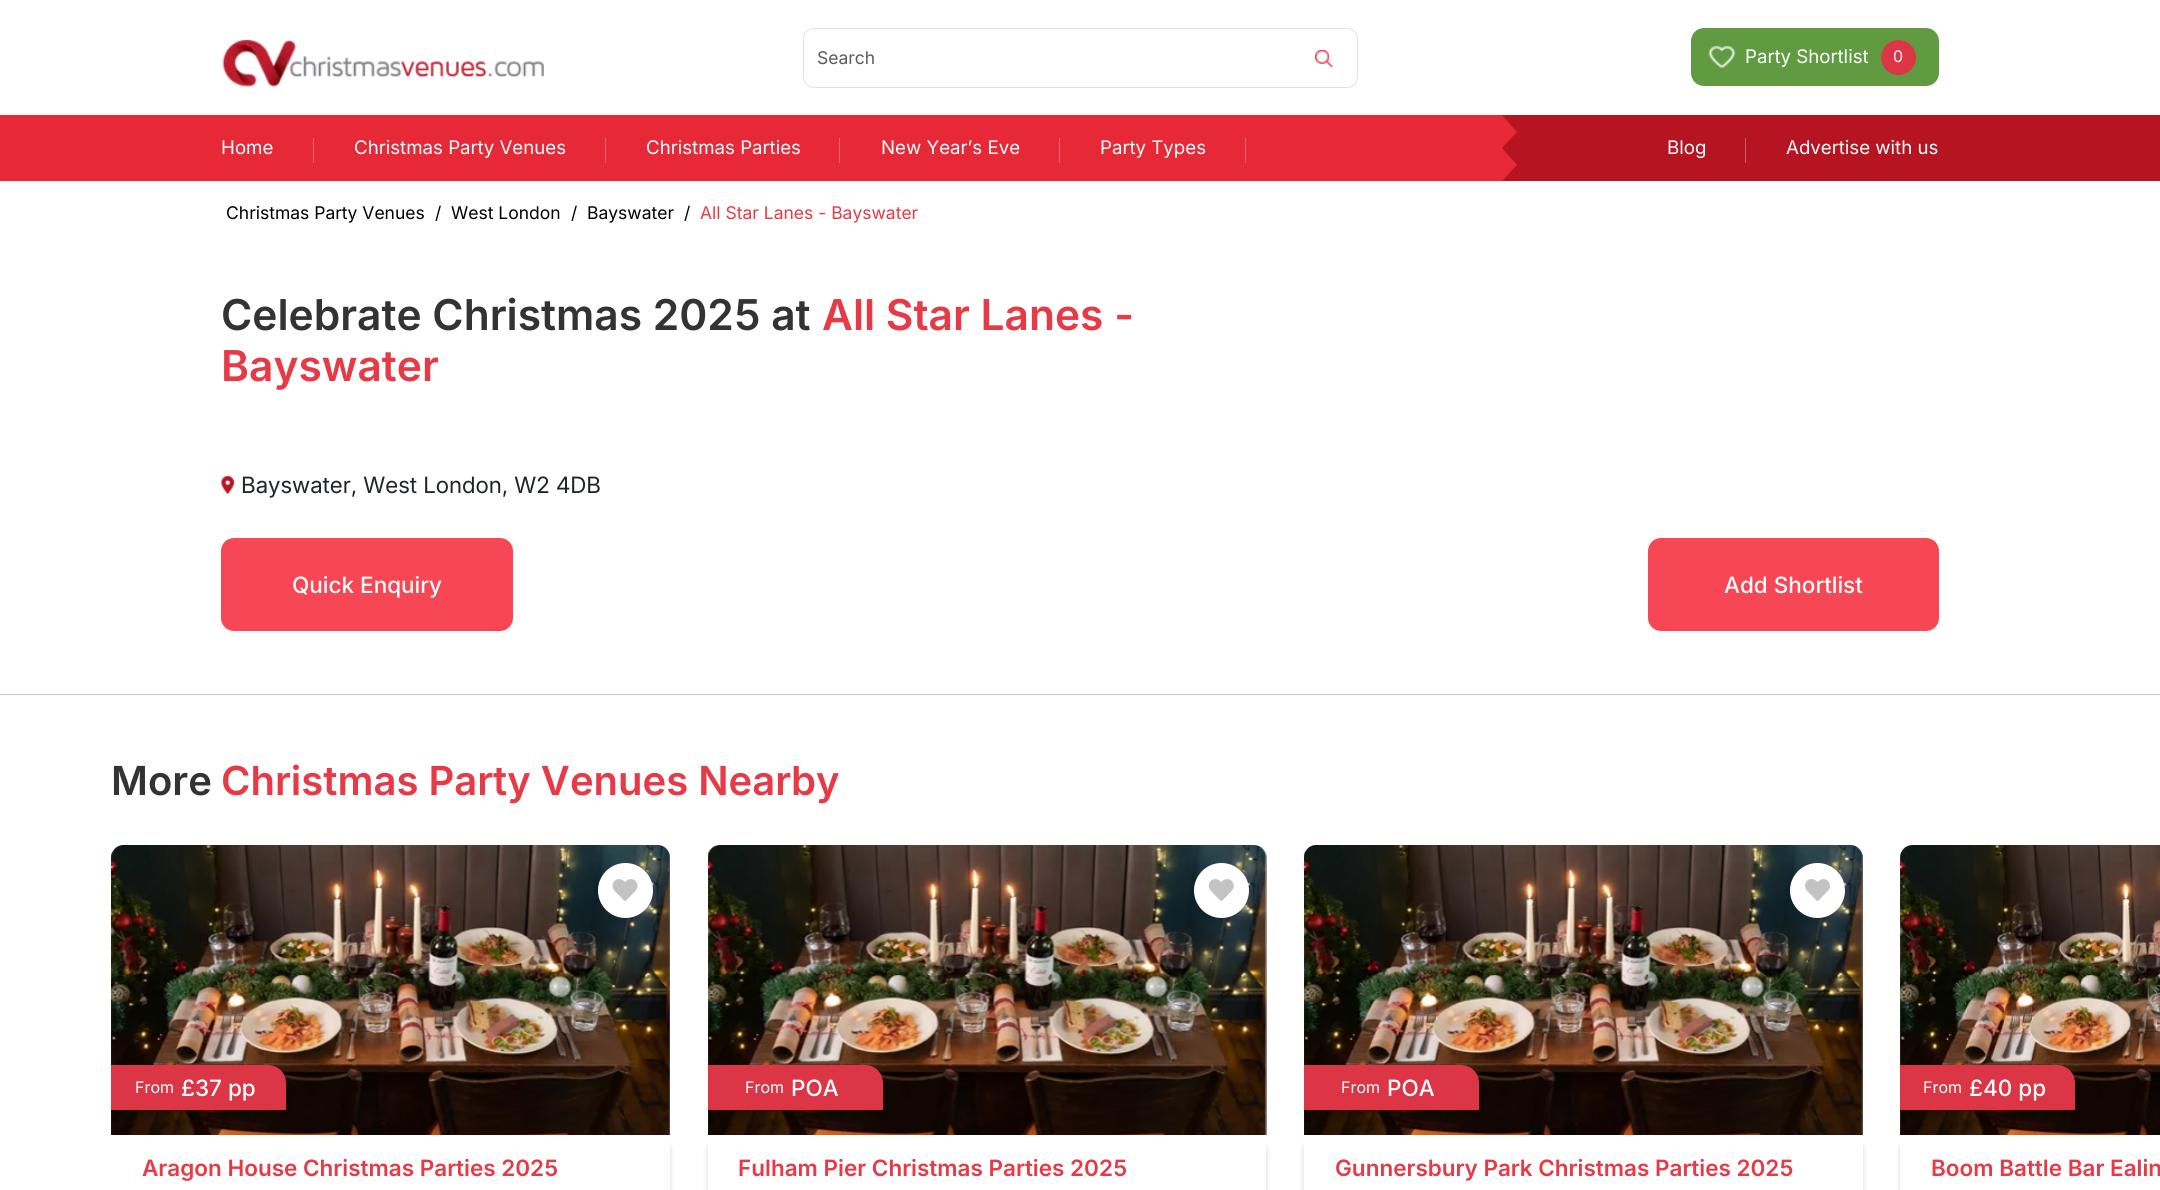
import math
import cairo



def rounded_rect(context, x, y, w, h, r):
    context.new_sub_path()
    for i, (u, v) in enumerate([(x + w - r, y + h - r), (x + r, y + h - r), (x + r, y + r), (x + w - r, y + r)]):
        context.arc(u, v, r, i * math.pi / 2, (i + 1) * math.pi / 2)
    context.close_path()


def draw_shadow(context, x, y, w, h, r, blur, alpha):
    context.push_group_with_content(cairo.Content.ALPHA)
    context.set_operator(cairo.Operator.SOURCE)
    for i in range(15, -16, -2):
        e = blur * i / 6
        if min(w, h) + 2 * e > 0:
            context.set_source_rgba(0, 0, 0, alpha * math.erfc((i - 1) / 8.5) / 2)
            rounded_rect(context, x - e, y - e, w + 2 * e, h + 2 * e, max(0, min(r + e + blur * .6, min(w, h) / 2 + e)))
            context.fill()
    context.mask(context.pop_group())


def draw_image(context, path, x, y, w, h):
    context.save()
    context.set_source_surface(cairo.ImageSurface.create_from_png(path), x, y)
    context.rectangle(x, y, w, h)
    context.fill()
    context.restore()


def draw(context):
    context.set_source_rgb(1, 1, 1)
    context.paint()
    draw_image(context, "images/1.png", 222, 39, 322, 49)
    rounded_rect(context, 803.5, 28.5, 554, 59, 10.5)
    context.set_source_rgb(222 / 255, 226 / 255, 230 / 255)
    context.set_line_width(1)
    context.stroke()
    draw_image(context, "images/2.png", 1315, 50, 18, 18)
    context.set_source_rgb(96 / 255, 155 / 255, 65 / 255)
    rounded_rect(context, 1691, 28, 248, 58, 13)
    context.fill()
    draw_image(context, "images/3.png", 1708, 45, 28, 23)
    context.set_source_rgb(220 / 255, 53 / 255, 69 / 255)
    context.arc(1898.5, 57.5, 17.5, 0, 2 * math.pi)
    context.fill()
    context.set_source_rgb(230 / 255, 40 / 255, 55 / 255)
    context.rectangle(0, 115, 1517, 66)
    context.fill()
    context.set_source_rgb(181 / 255, 20 / 255, 32 / 255)
    context.new_path()
    context.move_to(1555, 115)
    context.line_to(1502, 115)
    context.line_to(1517, 132)
    context.line_to(1502, 148)
    context.line_to(1517, 165)
    context.line_to(1502, 181)
    context.line_to(1555, 181)
    context.close_path()
    context.fill()
    context.rectangle(1555, 115, 605, 66)
    context.fill()
    context.set_source_rgb(238 / 255, 105 / 255, 115 / 255)
    context.rectangle(313, 138, 1, 25)
    context.fill()
    context.rectangle(605, 138, 1, 25)
    context.fill()
    context.rectangle(839, 138, 1, 25)
    context.fill()
    context.rectangle(1059, 138, 1, 25)
    context.fill()
    context.rectangle(1245, 138, 1, 25)
    context.fill()
    context.set_source_rgb(203 / 255, 91 / 255, 99 / 255)
    context.rectangle(1745, 138, 1, 25)
    context.fill()
    draw_image(context, "images/4.png", 221, 476, 14, 18)
    context.set_source_rgb(247 / 255, 71 / 255, 84 / 255)
    rounded_rect(context, 221, 538, 292, 93, 13)
    context.fill()
    rounded_rect(context, 1648, 538, 291, 93, 13)
    context.fill()
    context.set_source_rgb(200 / 255, 201 / 255, 202 / 255)
    context.rectangle(0, 694, 2160, 1)
    context.fill()
    context.save()
    context.rectangle(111, 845, 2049, 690)
    context.clip()
    context.set_source_rgb(0, 0, 0)
    draw_shadow(context, 111, 1138, 559, 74, 13, 3, 0.16)
    context.restore()
    context.set_source_rgb(128 / 255, 128 / 255, 128 / 255)
    context.new_path()
    context.move_to(124, 845)
    context.line_to(657, 845)
    context.curve_to(664, 845, 670, 851, 670, 858)
    context.line_to(670, 1135)
    context.line_to(111, 1135)
    context.line_to(111, 858)
    context.curve_to(111, 851, 117, 845, 124, 845)
    context.close_path()
    context.fill()
    draw_image(context, "images/5.png", 111, 845, 559, 290)
    context.set_source_rgb(1, 1, 1)
    context.arc(625.5, 890.5, 27.5, 0, 2 * math.pi)
    context.fill()
    draw_image(context, "images/6.png", 612, 879, 26, 22)
    context.set_source_rgb(220 / 255, 53 / 255, 69 / 255)
    context.new_path()
    context.move_to(111, 1065)
    context.line_to(268, 1065)
    context.curve_to(278, 1065, 286, 1073, 286, 1083)
    context.line_to(286, 1110)
    context.line_to(111, 1110)
    context.close_path()
    context.fill()
    context.set_source_rgb(1, 1, 1)
    context.rectangle(111, 1135, 559, 55)
    context.fill()
    context.save()
    context.set_fill_rule(cairo.FillRule.EVEN_ODD)
    context.new_path()
    context.move_to(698, 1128)
    context.line_to(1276, 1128)
    context.line_to(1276, 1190)
    context.line_to(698, 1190)
    context.close_path()
    context.move_to(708, 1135)
    context.line_to(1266, 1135)
    context.line_to(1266, 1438)
    context.curve_to(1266, 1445, 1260, 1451, 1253, 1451)
    context.line_to(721, 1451)
    context.curve_to(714, 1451, 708, 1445, 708, 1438)
    context.close_path()
    context.clip()
    context.set_source_rgb(0, 0, 0)
    draw_shadow(context, 708, 1138, 558, 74, 13, 3, 0.16)
    context.restore()
    draw_image(context, "images/7.png", 708, 845, 559, 290)
    context.arc(1221.5, 890.5, 27.5, 0, 2 * math.pi)
    context.fill()
    draw_image(context, "images/8.png", 1208, 879, 26, 22)
    context.set_source_rgb(220 / 255, 53 / 255, 69 / 255)
    context.new_path()
    context.move_to(708, 1065)
    context.line_to(865, 1065)
    context.curve_to(875, 1065, 883, 1073, 883, 1083)
    context.line_to(883, 1110)
    context.line_to(708, 1110)
    context.close_path()
    context.fill()
    context.set_source_rgb(0, 0, 0)
    draw_shadow(context, 1304, 1138, 559, 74, 13, 3, 0.16)
    context.set_source_rgb(128 / 255, 128 / 255, 128 / 255)
    context.new_path()
    context.move_to(1317, 845)
    context.line_to(1850, 845)
    context.curve_to(1857, 845, 1863, 851, 1863, 858)
    context.line_to(1863, 1135)
    context.line_to(1304, 1135)
    context.line_to(1304, 858)
    context.curve_to(1304, 851, 1310, 845, 1317, 845)
    context.close_path()
    context.fill()
    draw_image(context, "images/9.png", 1304, 845, 559, 290)
    context.set_source_rgb(1, 1, 1)
    context.arc(1817.5, 890.5, 27.5, 0, 2 * math.pi)
    context.fill()
    draw_image(context, "images/10.png", 1805, 879, 25, 22)
    context.set_source_rgb(220 / 255, 53 / 255, 69 / 255)
    context.new_path()
    context.move_to(1304, 1065)
    context.line_to(1461, 1065)
    context.curve_to(1471, 1065, 1479, 1073, 1479, 1083)
    context.line_to(1479, 1110)
    context.line_to(1304, 1110)
    context.close_path()
    context.fill()
    context.set_source_rgb(1, 1, 1)
    context.rectangle(1304, 1135, 559, 55)
    context.fill()
    context.save()
    context.rectangle(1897, 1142, 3, 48)
    context.clip()
    context.set_source_rgb(0, 0, 0)
    draw_shadow(context, 1900, 1138, 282, 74, 13, 3, 0.16)
    context.restore()
    draw_image(context, "images/11.png", 1900, 845, 260, 290)
    context.set_source_rgb(220 / 255, 53 / 255, 69 / 255)
    context.new_path()
    context.move_to(1900, 1065)
    context.line_to(2057, 1065)
    context.curve_to(2067, 1065, 2075, 1073, 2075, 1083)
    context.line_to(2075, 1110)
    context.line_to(1900, 1110)
    context.close_path()
    context.fill()
    context.select_font_face("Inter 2")
    context.set_font_size(17.5)
    context.set_source_rgb(89 / 255, 92 / 255, 95 / 255)
    context.move_to(817, 64)
    context.show_text("Search")
    context.select_font_face("Inter")
    context.set_font_size(18.75)
    context.set_source_rgb(1, 1, 1)
    context.move_to(1745, 63)
    context.show_text("Party Shortlist")
    context.select_font_face("Inter 2")
    context.set_font_size(16)
    context.move_to(1893, 62)
    context.show_text("0")
    context.select_font_face("Inter")
    context.set_font_size(18.75)
    context.move_to(221, 154)
    context.show_text("Home")
    context.move_to(354, 154)
    context.show_text("Christmas Party Venues")
    context.move_to(646, 154)
    context.show_text("Christmas Parties")
    context.move_to(881, 154)
    context.show_text("New Year’s Eve")
    context.move_to(1100, 154)
    context.show_text("Party Types")
    context.move_to(1667, 154)
    context.show_text("Blog")
    context.move_to(1786, 154)
    context.show_text("Advertise with us")
    context.select_font_face("Inter 2")
    context.set_font_size(17.5)
    context.set_source_rgb(0, 0, 0)
    context.move_to(226, 219)
    context.show_text("Christmas Party Venues")
    context.move_to(435, 219)
    context.show_text("/")
    context.move_to(451, 219)
    context.show_text("West London")
    context.move_to(571, 219)
    context.show_text("/")
    context.move_to(587, 219)
    context.show_text("Bayswater")
    context.move_to(684, 219)
    context.show_text("/")
    context.set_source_rgb(230 / 255, 58 / 255, 71 / 255)
    context.move_to(700, 219)
    context.show_text("All Star Lanes - Bayswater")
    context.select_font_face("Inter SemiBold")
    context.set_font_size(42.5)
    context.set_source_rgb(51 / 255, 51 / 255, 51 / 255)
    context.move_to(221, 330)
    context.show_text("Celebrate Christmas 2025 at")
    context.set_source_rgb(230 / 255, 58 / 255, 71 / 255)
    context.move_to(822, 330)
    context.show_text("All Star Lanes -")
    context.move_to(221, 381)
    context.show_text("Bayswater")
    context.select_font_face("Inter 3")
    context.set_font_size(22.5)
    context.set_source_rgb(33 / 255, 37 / 255, 41 / 255)
    context.move_to(241, 493)
    context.show_text("Bayswater, West London, W2 4DB")
    context.select_font_face("Inter Medium")
    context.set_source_rgb(1, 1, 1)
    context.move_to(292, 593)
    context.show_text("Quick Enquiry")
    context.move_to(1724, 593)
    context.show_text("Add Shortlist")
    context.select_font_face("Inter SemiBold")
    context.set_font_size(40)
    context.set_source_rgb(51 / 255, 51 / 255, 51 / 255)
    context.move_to(111, 795)
    context.show_text("More")
    context.set_source_rgb(230 / 255, 58 / 255, 71 / 255)
    context.move_to(221, 795)
    context.show_text("Christmas Party Venues Nearby")
    context.select_font_face("Inter 2")
    context.set_font_size(16)
    context.set_source_rgb(1, 1, 1)
    context.move_to(135, 1093)
    context.show_text("From")
    context.select_font_face("Inter Medium")
    context.set_font_size(22.5)
    context.move_to(181, 1096)
    context.show_text("£37 pp")
    context.select_font_face("Inter SemiBold")
    context.set_source_rgb(230 / 255, 58 / 255, 71 / 255)
    context.move_to(142, 1176)
    context.show_text("Aragon House Christmas Parties 2025")
    context.select_font_face("Inter 2")
    context.set_font_size(16)
    context.set_source_rgb(1, 1, 1)
    context.move_to(745, 1093)
    context.show_text("From")
    context.select_font_face("Inter Medium")
    context.set_font_size(22.5)
    context.move_to(791, 1096)
    context.show_text("POA")
    context.select_font_face("Inter SemiBold")
    context.set_source_rgb(230 / 255, 58 / 255, 71 / 255)
    context.move_to(738, 1176)
    context.show_text("Fulham Pier Christmas Parties 2025")
    context.select_font_face("Inter 2")
    context.set_font_size(16)
    context.set_source_rgb(1, 1, 1)
    context.move_to(1341, 1093)
    context.show_text("From")
    context.select_font_face("Inter Medium")
    context.set_font_size(22.5)
    context.move_to(1387, 1096)
    context.show_text("POA")
    context.select_font_face("Inter SemiBold")
    context.set_source_rgb(230 / 255, 58 / 255, 71 / 255)
    context.move_to(1335, 1176)
    context.show_text("Gunnersbury Park Christmas Parties 2025")
    context.select_font_face("Inter 2")
    context.set_font_size(16)
    context.set_source_rgb(1, 1, 1)
    context.move_to(1923, 1093)
    context.show_text("From")
    context.select_font_face("Inter Medium")
    context.set_font_size(22.5)
    context.move_to(1969, 1096)
    context.show_text("£40 pp")
    context.select_font_face("Inter SemiBold")
    context.set_source_rgb(230 / 255, 58 / 255, 71 / 255)
    context.move_to(1931, 1176)
    context.show_text("Boom Battle Bar Ealin")


surface = cairo.ImageSurface(cairo.Format.RGB24, 2160, 1190)
context = cairo.Context(surface)
options = cairo.FontOptions()
options.set_hint_metrics(cairo.HintMetrics.OFF)
options.set_hint_style(cairo.HintStyle.NONE)
context.set_font_options(options)
context.set_miter_limit(4)
draw(context)
surface.write_to_png("out.png")
